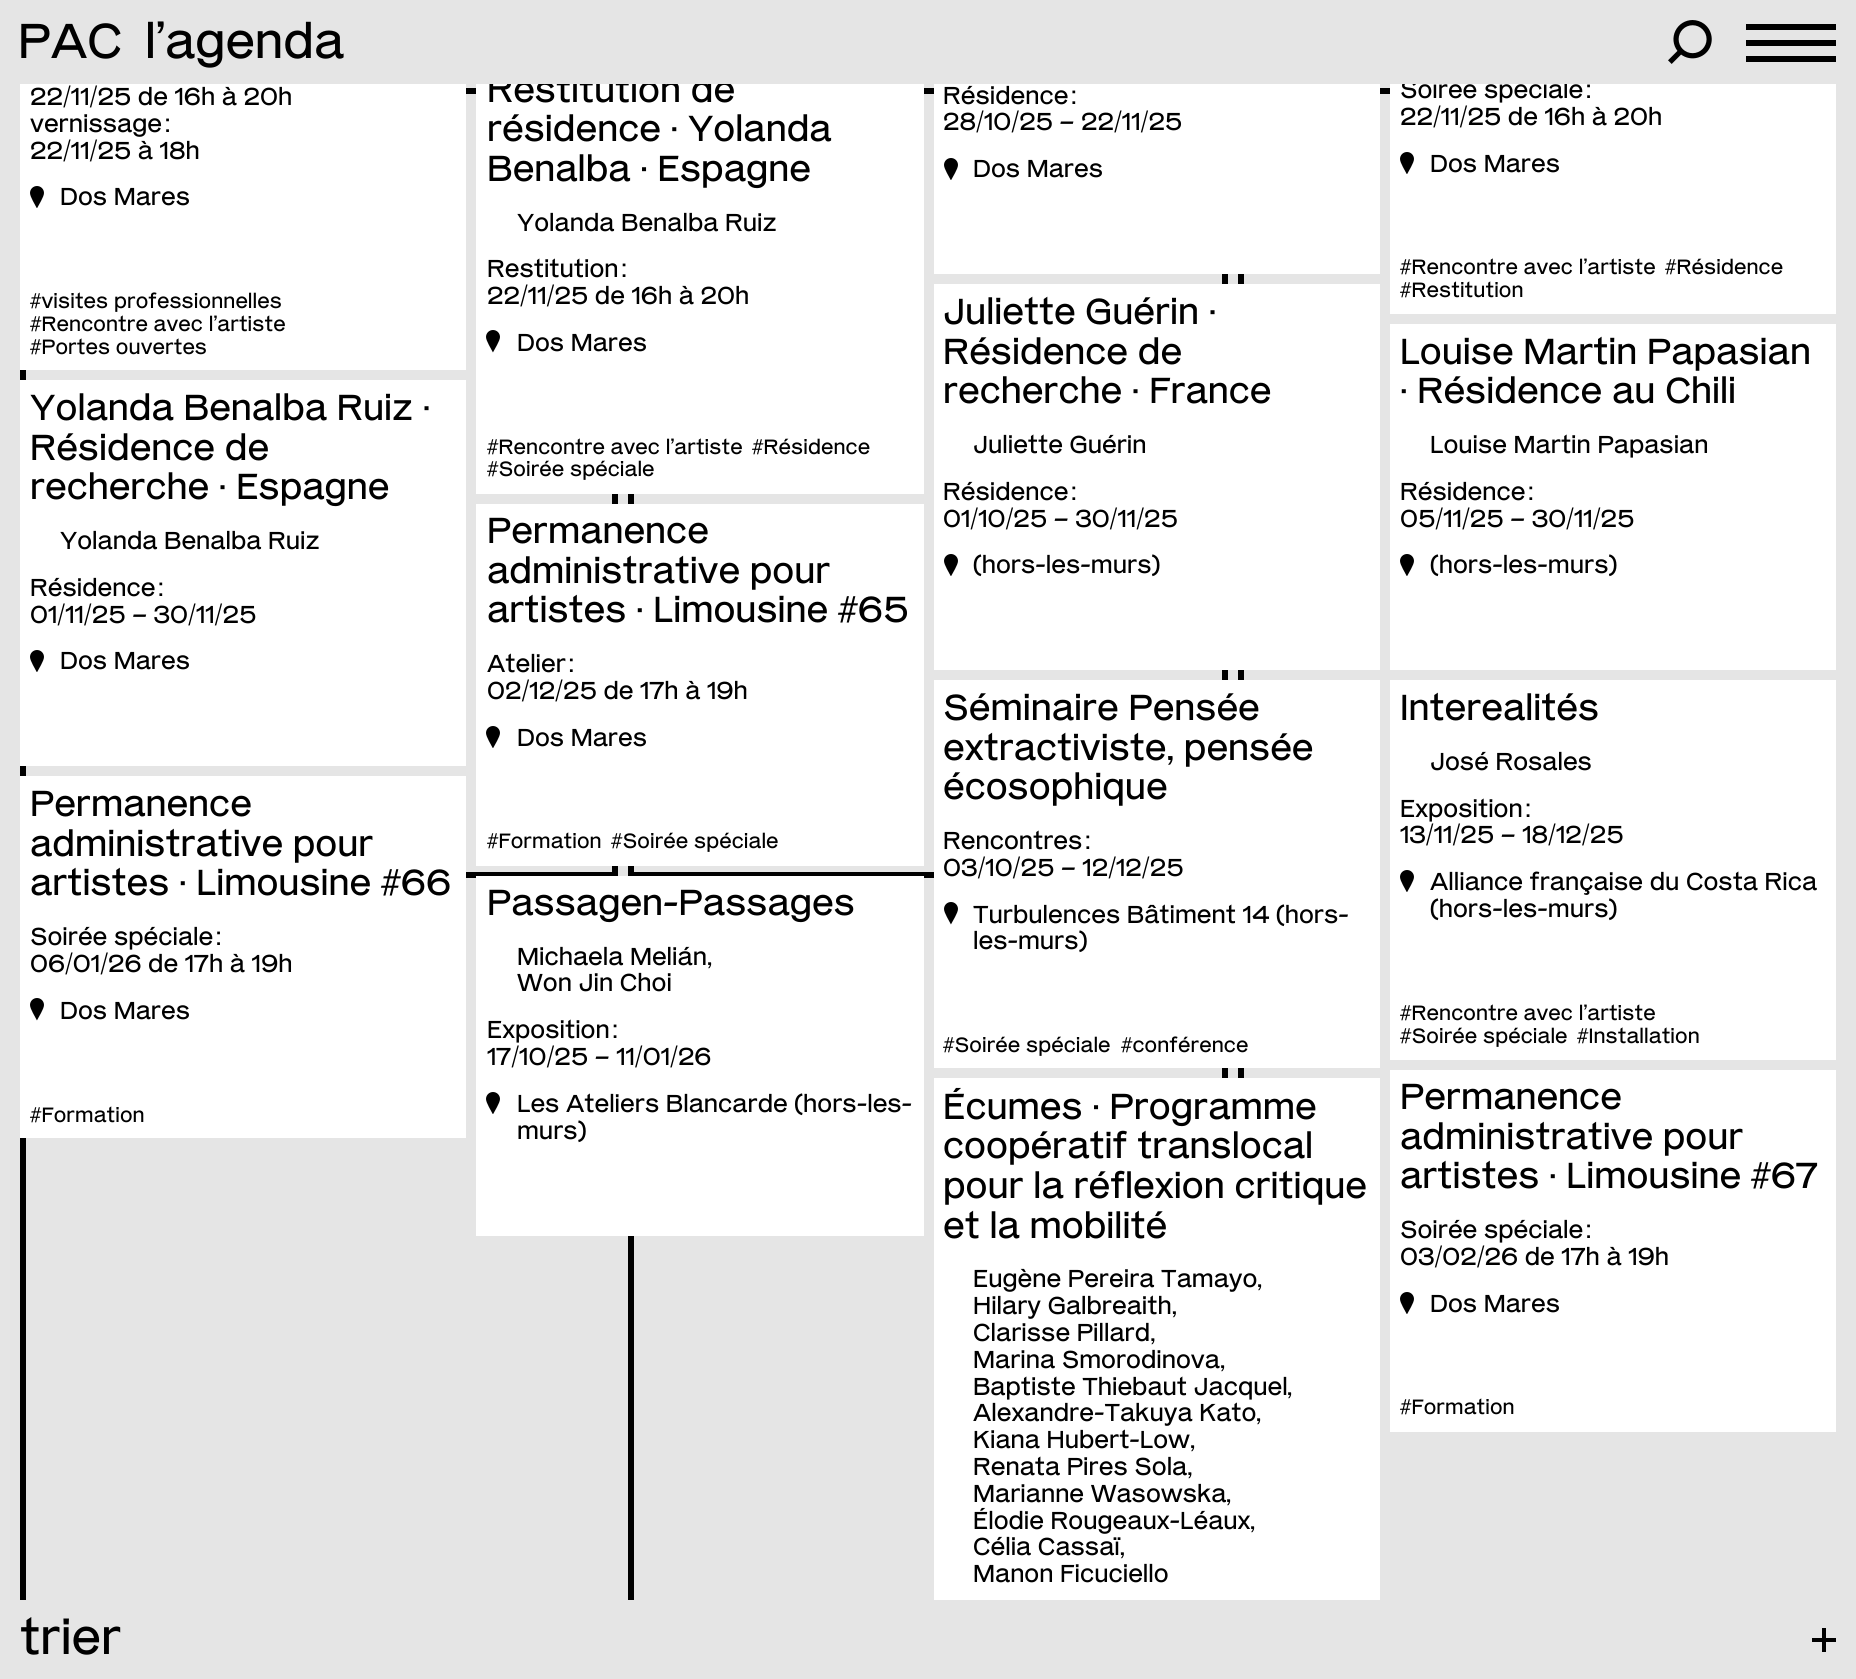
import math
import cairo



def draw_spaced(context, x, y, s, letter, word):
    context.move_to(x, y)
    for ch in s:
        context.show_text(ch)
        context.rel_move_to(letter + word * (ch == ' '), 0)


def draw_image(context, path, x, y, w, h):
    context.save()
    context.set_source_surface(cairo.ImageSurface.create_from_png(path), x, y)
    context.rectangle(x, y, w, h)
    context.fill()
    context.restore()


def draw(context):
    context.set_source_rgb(229 / 255, 229 / 255, 229 / 255)
    context.paint()
    draw_image(context, "images/1.png", 1668, 20, 44, 44)
    context.set_source_rgb(0, 0, 0)
    context.rectangle(1746, 40, 90, 6)
    context.fill()
    context.rectangle(1746, 24, 90, 6)
    context.fill()
    context.rectangle(1746, 56, 90, 6)
    context.fill()
    context.set_source_rgb(1, 1, 1)
    context.rectangle(20, 84, 446, 286)
    context.fill()
    draw_image(context, "images/2.png", 30, 186, 14, 22)
    context.rectangle(476, 84, 448, 410)
    context.fill()
    draw_image(context, "images/3.png", 486, 330, 14, 23)
    context.rectangle(934, 84, 446, 190)
    context.fill()
    draw_image(context, "images/2.png", 944, 158, 14, 22)
    context.rectangle(1390, 84, 446, 230)
    context.fill()
    draw_image(context, "images/2.png", 1400, 152, 14, 22)
    context.set_source_rgb(0, 0, 0)
    context.rectangle(20, 370, 6, 1230)
    context.fill()
    context.set_source_rgb(1, 1, 1)
    context.rectangle(20, 380, 446, 386)
    context.fill()
    draw_image(context, "images/2.png", 30, 650, 14, 22)
    context.set_source_rgb(0, 0, 0)
    context.rectangle(466, 872, 152, 6)
    context.fill()
    context.rectangle(612, 494, 6, 380)
    context.fill()
    context.rectangle(628, 494, 6, 1106)
    context.fill()
    context.set_source_rgb(1, 1, 1)
    context.rectangle(476, 504, 448, 362)
    context.fill()
    draw_image(context, "images/2.png", 486, 726, 14, 22)
    context.set_source_rgb(0, 0, 0)
    context.rectangle(1222, 274, 6, 804)
    context.fill()
    context.rectangle(1238, 274, 6, 804)
    context.fill()
    context.set_source_rgb(1, 1, 1)
    context.rectangle(934, 284, 446, 386)
    context.fill()
    draw_image(context, "images/2.png", 944, 554, 14, 22)
    context.rectangle(1390, 324, 446, 346)
    context.fill()
    draw_image(context, "images/2.png", 1400, 554, 14, 22)
    context.rectangle(20, 776, 446, 362)
    context.fill()
    draw_image(context, "images/3.png", 30, 998, 14, 23)
    context.set_source_rgb(0, 0, 0)
    context.rectangle(628, 872, 306, 6)
    context.fill()
    context.set_source_rgb(1, 1, 1)
    context.rectangle(476, 876, 448, 360)
    context.fill()
    draw_image(context, "images/2.png", 486, 1092, 14, 22)
    context.rectangle(934, 680, 446, 388)
    context.fill()
    draw_image(context, "images/3.png", 944, 902, 14, 23)
    context.rectangle(1390, 680, 446, 380)
    context.fill()
    draw_image(context, "images/2.png", 1400, 870, 14, 22)
    context.rectangle(934, 1078, 446, 522)
    context.fill()
    context.rectangle(1390, 1070, 446, 362)
    context.fill()
    draw_image(context, "images/2.png", 1400, 1292, 14, 22)
    context.set_source_rgb(0, 0, 0)
    context.rectangle(466, 88, 10, 6)
    context.fill()
    context.rectangle(924, 88, 10, 6)
    context.fill()
    context.rectangle(1380, 88, 10, 6)
    context.fill()
    context.rectangle(1812, 1638, 24, 4)
    context.fill()
    context.rectangle(1822, 1628, 4, 24)
    context.fill()
    context.select_font_face("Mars")
    context.set_font_size(48.75)
    context.move_to(18, 58)
    context.show_text("PAC")
    context.move_to(145, 58)
    context.show_text("l’agenda")
    context.set_font_size(24.4)
    context.move_to(30, 105)
    context.show_text("22/11/25 de 16h à 20h")
    context.move_to(30, 132)
    context.show_text("vernissage :")
    context.move_to(30, 159)
    context.show_text("22/11/25 à 18h")
    context.move_to(60, 205)
    context.show_text("Dos Mares")
    context.set_font_size(20.6)
    draw_spaced(context, 30, 308, "#visites professionnelles", 0.1, 0)
    draw_spaced(context, 30, 331, "#Rencontre avec l’artiste", 0.1, 0)
    draw_spaced(context, 30, 354, "#Portes ouvertes", 0.1, 0)
    context.set_font_size(36)
    context.move_to(487, 102)
    context.show_text("Restitution de")
    context.move_to(487, 141)
    context.show_text("résidence · Yolanda")
    context.move_to(487, 181)
    context.show_text("Benalba · Espagne")
    context.set_font_size(24.4)
    context.move_to(517, 231)
    context.show_text("Yolanda Benalba Ruiz")
    context.move_to(487, 277)
    context.show_text("Restitution :")
    context.move_to(487, 304)
    context.show_text("22/11/25 de 16h à 20h")
    context.move_to(517, 351)
    context.show_text("Dos Mares")
    context.set_font_size(20.6)
    draw_spaced(context, 487, 454, "#Rencontre avec l’artiste", 0.1, 0)
    draw_spaced(context, 752, 454, "#Résidence", 0.1, 0)
    draw_spaced(context, 487, 476, "#Soirée spéciale", 0.1, 0)
    context.set_font_size(24.4)
    context.move_to(943, 104)
    context.show_text("Résidence :")
    context.move_to(943, 130)
    context.show_text("28/10/25 – 22/11/25")
    context.move_to(973, 177)
    context.show_text("Dos Mares")
    context.move_to(1400, 98)
    context.show_text("Soirée spéciale :")
    context.set_source_rgb(229 / 255, 229 / 255, 229 / 255)
    context.rectangle(488, 74, 1079, 10)
    context.fill()
    context.set_source_rgb(0, 0, 0)
    context.move_to(1400, 125)
    context.show_text("22/11/25 de 16h à 20h")
    context.move_to(1430, 172)
    context.show_text("Dos Mares")
    context.set_font_size(20.6)
    draw_spaced(context, 1400, 274, "#Rencontre avec l’artiste", 0.1, 0)
    draw_spaced(context, 1665, 274, "#Résidence", 0.1, 0)
    draw_spaced(context, 1400, 297, "#Restitution", 0.1, 0)
    context.set_font_size(36)
    context.move_to(30, 420)
    context.show_text("Yolanda Benalba Ruiz ·")
    context.move_to(30, 460)
    context.show_text("Résidence de")
    context.move_to(30, 499)
    context.show_text("recherche · Espagne")
    context.set_font_size(24.4)
    context.move_to(60, 549)
    context.show_text("Yolanda Benalba Ruiz")
    context.move_to(30, 596)
    context.show_text("Résidence :")
    context.move_to(30, 623)
    context.show_text("01/11/25 – 30/11/25")
    context.move_to(60, 669)
    context.show_text("Dos Mares")
    context.set_font_size(36)
    context.move_to(487, 543)
    context.show_text("Permanence")
    context.move_to(487, 583)
    context.show_text("administrative pour")
    context.move_to(487, 622)
    context.show_text("artistes · Limousine #65")
    context.set_font_size(24.4)
    context.move_to(487, 672)
    context.show_text("Atelier :")
    context.move_to(487, 699)
    context.show_text("02/12/25 de 17h à 19h")
    context.move_to(517, 746)
    context.show_text("Dos Mares")
    context.set_font_size(20.6)
    draw_spaced(context, 487, 848, "#Formation", 0.1, 0)
    draw_spaced(context, 611, 848, "#Soirée spéciale", 0.1, 0)
    context.set_font_size(36)
    context.move_to(943, 324)
    context.show_text("Juliette Guérin ·")
    context.move_to(943, 364)
    context.show_text("Résidence de")
    context.move_to(943, 403)
    context.show_text("recherche · France")
    context.set_font_size(24.4)
    context.move_to(973, 453)
    context.show_text("Juliette Guérin")
    context.move_to(943, 500)
    context.show_text("Résidence :")
    context.move_to(943, 527)
    context.show_text("01/10/25 – 30/11/25")
    context.move_to(973, 573)
    context.show_text("(hors-les-murs)")
    context.set_font_size(36)
    context.move_to(1400, 364)
    context.show_text("Louise Martin Papasian")
    context.move_to(1400, 403)
    context.show_text("· Résidence au Chili")
    context.set_font_size(24.4)
    context.move_to(1430, 453)
    context.show_text("Louise Martin Papasian")
    context.move_to(1400, 500)
    context.show_text("Résidence :")
    context.move_to(1400, 527)
    context.show_text("05/11/25 – 30/11/25")
    context.move_to(1430, 573)
    context.show_text("(hors-les-murs)")
    context.set_font_size(36)
    context.move_to(30, 816)
    context.show_text("Permanence")
    context.move_to(30, 856)
    context.show_text("administrative pour")
    context.move_to(30, 895)
    context.show_text("artistes · Limousine #66")
    context.set_font_size(24.4)
    context.move_to(30, 945)
    context.show_text("Soirée spéciale :")
    context.move_to(30, 972)
    context.show_text("06/01/26 de 17h à 19h")
    context.move_to(60, 1019)
    context.show_text("Dos Mares")
    context.set_font_size(20.6)
    draw_spaced(context, 30, 1122, "#Formation", 0.1, 0)
    context.set_font_size(36)
    context.move_to(487, 915)
    context.show_text("Passagen-Passages")
    context.set_font_size(24.4)
    context.move_to(517, 965)
    context.show_text("Michaela Melián,")
    context.move_to(517, 991)
    context.show_text("Won Jin Choi")
    context.move_to(487, 1038)
    context.show_text("Exposition :")
    context.move_to(487, 1065)
    context.show_text("17/10/25 – 11/01/26")
    context.move_to(517, 1112)
    context.show_text("Les Ateliers Blancarde (hors-les-")
    context.move_to(517, 1139)
    context.show_text("murs)")
    context.set_font_size(36)
    context.move_to(943, 720)
    context.show_text("Séminaire Pensée")
    context.move_to(943, 760)
    context.show_text("extractiviste, pensée")
    context.move_to(943, 799)
    context.show_text("écosophique")
    context.set_font_size(24.4)
    context.move_to(943, 849)
    context.show_text("Rencontres :")
    context.move_to(943, 876)
    context.show_text("03/10/25 – 12/12/25")
    context.move_to(973, 923)
    context.show_text("Turbulences Bâtiment 14 (hors-")
    context.move_to(973, 949)
    context.show_text("les-murs)")
    context.set_font_size(20.6)
    draw_spaced(context, 943, 1052, "#Soirée spéciale", 0.1, 0)
    draw_spaced(context, 1121, 1052, "#conférence", 0.1, 0)
    context.set_font_size(36)
    context.move_to(1400, 720)
    context.show_text("Interealités")
    context.set_font_size(24.4)
    context.move_to(1430, 770)
    context.show_text("José Rosales")
    context.move_to(1400, 817)
    context.show_text("Exposition :")
    context.move_to(1400, 843)
    context.show_text("13/11/25 – 18/12/25")
    context.move_to(1430, 890)
    context.show_text("Alliance française du Costa Rica")
    context.move_to(1430, 917)
    context.show_text("(hors-les-murs)")
    context.set_font_size(20.6)
    draw_spaced(context, 1400, 1020, "#Rencontre avec l’artiste", 0.1, 0)
    draw_spaced(context, 1400, 1043, "#Soirée spéciale", 0.1, 0)
    draw_spaced(context, 1577, 1043, "#Installation", 0.1, 0)
    context.set_font_size(36)
    context.move_to(943, 1119)
    context.show_text("Écumes · Programme")
    context.move_to(943, 1158)
    context.show_text("coopératif translocal")
    context.move_to(943, 1198)
    context.show_text("pour la réflexion critique")
    context.move_to(943, 1238)
    context.show_text("et la mobilité")
    context.set_font_size(24.4)
    context.move_to(973, 1287)
    context.show_text("Eugène Pereira Tamayo")
    context.move_to(1257, 1287)
    context.show_text(",")
    context.move_to(973, 1314)
    context.show_text("Hilary Galbreaith,")
    context.move_to(973, 1341)
    context.show_text("Clarisse Pillard,")
    context.move_to(973, 1368)
    context.show_text("Marina Smorodinova,")
    context.move_to(973, 1395)
    context.show_text("Baptiste Thiebaut Jacquel")
    context.move_to(1287, 1395)
    context.show_text(",")
    context.move_to(973, 1421)
    context.show_text("Alexandre-Takuya Kato")
    context.move_to(1256, 1421)
    context.show_text(",")
    context.move_to(973, 1448)
    context.show_text("Kiana Hubert-Low,")
    context.move_to(973, 1475)
    context.show_text("Renata Pires Sola,")
    context.move_to(973, 1502)
    context.show_text("Marianne Wasowska")
    context.move_to(1226, 1502)
    context.show_text(",")
    context.move_to(973, 1529)
    context.show_text("Élodie Rougeaux-Léaux")
    context.move_to(1250, 1529)
    context.show_text(",")
    context.move_to(973, 1555)
    context.show_text("Célia Cassaï,")
    context.move_to(973, 1582)
    context.show_text("Manon Ficuciello")
    context.set_font_size(36)
    context.move_to(1400, 1109)
    context.show_text("Permanence")
    context.move_to(1400, 1149)
    context.show_text("administrative pour")
    context.move_to(1400, 1188)
    context.show_text("artistes · Limousine #67")
    context.set_font_size(24.4)
    context.move_to(1400, 1238)
    context.show_text("Soirée spéciale :")
    context.move_to(1400, 1265)
    context.show_text("03/02/26 de 17h à 19h")
    context.move_to(1430, 1312)
    context.show_text("Dos Mares")
    context.set_font_size(20.6)
    draw_spaced(context, 1400, 1414, "#Formation", 0.1, 0)
    context.set_font_size(48.75)
    context.move_to(20, 1654)
    context.show_text("trier")


surface = cairo.ImageSurface(cairo.Format.RGB24, 1856, 1679)
context = cairo.Context(surface)
options = cairo.FontOptions()
options.set_hint_metrics(cairo.HintMetrics.OFF)
options.set_hint_style(cairo.HintStyle.NONE)
context.set_font_options(options)
context.set_miter_limit(4)
draw(context)
surface.write_to_png("out.png")
